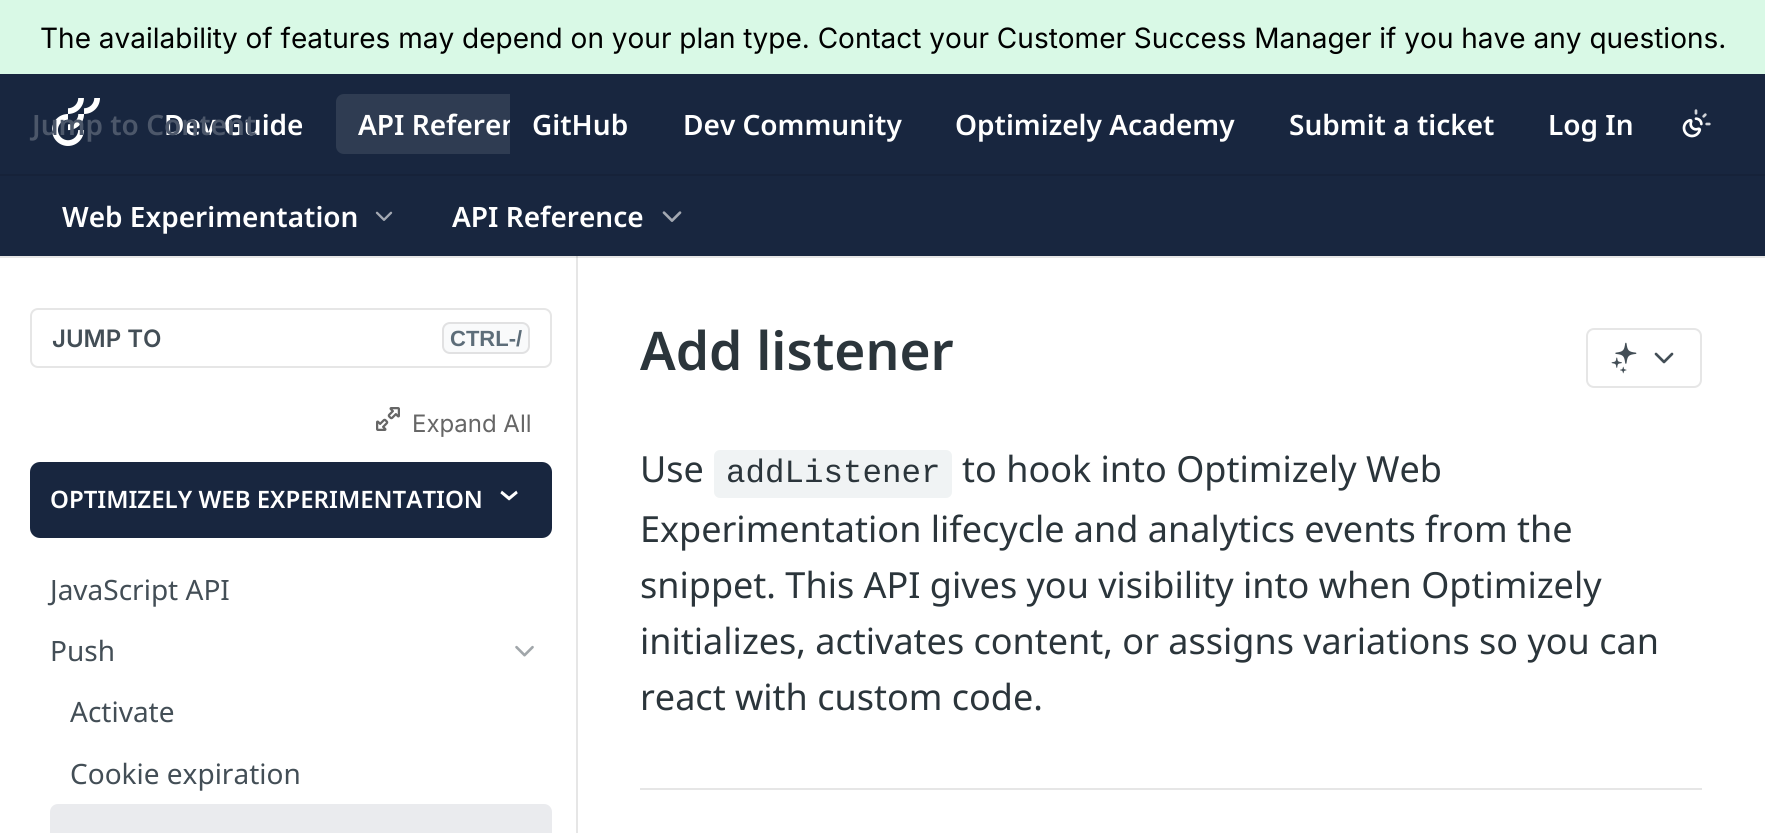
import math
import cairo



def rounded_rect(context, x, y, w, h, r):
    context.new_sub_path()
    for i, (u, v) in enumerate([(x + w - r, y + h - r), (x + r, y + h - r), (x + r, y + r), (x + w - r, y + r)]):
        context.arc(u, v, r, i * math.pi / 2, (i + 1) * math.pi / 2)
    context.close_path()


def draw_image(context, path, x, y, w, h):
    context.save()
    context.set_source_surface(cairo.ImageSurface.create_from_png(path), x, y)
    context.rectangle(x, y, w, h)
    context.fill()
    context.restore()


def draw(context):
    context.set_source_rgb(1, 1, 1)
    context.paint()
    context.set_source_rgb(230 / 255, 230 / 255, 230 / 255)
    context.rectangle(0, 256, 1765, 2)
    context.fill()
    context.set_source_rgb(217 / 255, 249 / 255, 230 / 255)
    context.rectangle(0, 0, 1765, 74)
    context.fill()
    context.set_source_rgb(24 / 255, 38 / 255, 63 / 255)
    context.rectangle(0, 74, 1765, 182)
    context.fill()
    context.set_source_rgb(22 / 255, 34 / 255, 57 / 255)
    context.rectangle(0, 174, 1765, 2)
    context.fill()
    draw_image(context, "images/1.png", 52, 98, 48, 48)
    context.set_source_rgb(47 / 255, 60 / 255, 82 / 255)
    context.new_path()
    context.move_to(344, 94)
    context.line_to(510, 94)
    context.line_to(510, 154)
    context.line_to(344, 154)
    context.curve_to(339.5, 154, 336, 150.5, 336, 146)
    context.line_to(336, 102)
    context.curve_to(336, 97.5, 339.5, 94, 344, 94)
    context.close_path()
    context.fill()
    draw_image(context, "images/2.png", 1682, 109, 29, 29)
    draw_image(context, "images/3.png", 375, 211, 18, 10)
    draw_image(context, "images/4.png", 662, 211, 20, 11)
    context.set_source_rgb(230 / 255, 230 / 255, 230 / 255)
    context.rectangle(576, 256, 2, 577)
    context.fill()
    context.set_source_rgb(207 / 255, 207 / 255, 207 / 255)
    context.rectangle(576, 256, 2, 2)
    context.fill()
    rounded_rect(context, 31, 309, 520, 58, 7)
    context.set_source_rgb(230 / 255, 230 / 255, 230 / 255)
    context.stroke()
    context.set_source_rgb(249 / 255, 250 / 255, 251 / 255)
    rounded_rect(context, 442, 322, 88, 32, 8)
    context.fill()
    rounded_rect(context, 443, 323, 86, 30, 7)
    context.set_source_rgba(0, 0, 0, 0.1)
    context.stroke()
    draw_image(context, "images/5.png", 376, 407, 24, 24)
    context.set_source_rgb(24 / 255, 38 / 255, 63 / 255)
    rounded_rect(context, 30, 462, 522, 76, 10)
    context.fill()
    draw_image(context, "images/6.png", 515, 645, 19, 12)
    context.set_source_rgb(234 / 255, 235 / 255, 238 / 255)
    context.new_path()
    context.move_to(58, 804)
    context.line_to(544, 804)
    context.curve_to(548.5, 804, 552, 807.5, 552, 812)
    context.line_to(552, 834)
    context.line_to(50, 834)
    context.line_to(50, 812)
    context.curve_to(50, 807.5, 53.5, 804, 58, 804)
    context.close_path()
    context.fill()
    context.set_source_rgb(230 / 255, 230 / 255, 230 / 255)
    context.rectangle(640, 788, 1062, 2)
    context.fill()
    rounded_rect(context, 1587, 329, 114, 58, 7)
    context.stroke()
    draw_image(context, "images/7.png", 1611, 342, 26, 32)
    context.new_path()
    context.move_to(1656, 354)
    context.line_to(1664, 362)
    context.line_to(1672, 354)
    context.set_source_rgb(67 / 255, 78 / 255, 86 / 255)
    context.set_line_width(2.7)
    context.set_line_cap(cairo.LineCap.ROUND)
    context.set_line_join(cairo.LineJoin.ROUND)
    context.stroke()
    context.set_source_rgb(240 / 255, 243 / 255, 244 / 255)
    rounded_rect(context, 714, 450, 238, 48, 6)
    context.fill()
    context.select_font_face("Inter")
    context.set_font_size(28)
    context.set_source_rgb(0, 0, 0)
    context.move_to(40, 48)
    context.show_text("The availability of features may depend on your plan type. Contact your Customer Success Manager if you have any questions.")
    context.select_font_face("Noto Sans SemiBold")
    context.set_source_rgb(1, 1, 1)
    context.move_to(164, 135)
    context.show_text("Dev Guide")
    context.set_source_rgb(76 / 255, 87 / 255, 106 / 255)
    context.move_to(32, 135)
    context.show_text("Jump to Content")
    context.save()
    context.rectangle(0, 76, 510, 98)
    context.clip()
    context.set_source_rgb(1, 1, 1)
    context.move_to(358, 135)
    context.show_text("API Referen")
    context.restore()
    context.set_source_rgb(1, 1, 1)
    context.move_to(532, 135)
    context.show_text("GitHub")
    context.move_to(683, 135)
    context.show_text("Dev Community")
    context.move_to(955, 135)
    context.show_text("Optimizely Academy")
    context.move_to(1289, 135)
    context.show_text("Submit a ticket")
    context.move_to(1548, 135)
    context.show_text("Log In")
    context.move_to(62, 227)
    context.show_text("Web Experimentation")
    context.move_to(452, 227)
    context.show_text("API Reference")
    context.select_font_face("Inter SemiBold")
    context.set_font_size(24)
    context.set_source_rgb(67 / 255, 78 / 255, 86 / 255)
    context.move_to(52, 347)
    context.show_text("JUMP TO")
    context.select_font_face("Liberation Sans", cairo.FontSlant.NORMAL, cairo.FontWeight.BOLD)
    context.set_font_size(22)
    context.set_source_rgb(93 / 255, 109 / 255, 121 / 255)
    context.move_to(450, 346)
    context.show_text("CTRL-/")
    context.select_font_face("Inter")
    context.set_font_size(24)
    context.set_source_rgb(102 / 255, 102 / 255, 102 / 255)
    context.move_to(412, 432)
    context.show_text("Expand All")
    context.select_font_face("Noto Sans SemiBold")
    context.set_source_rgb(1, 1, 1)
    context.move_to(50, 508)
    context.show_text("OPTIMIZELY WEB EXPERIMENTATION")
    context.select_font_face("Noto Sans")
    context.set_font_size(42)
    context.save()
    context.translate(498, 489)
    context.rotate(90 * math.pi / 180)
    context.move_to(0, 0)
    context.show_text("›")
    context.restore()
    context.set_font_size(28)
    context.set_source_rgb(67 / 255, 78 / 255, 86 / 255)
    context.move_to(50, 600)
    context.show_text("JavaScript API")
    context.move_to(50, 661)
    context.show_text("Push")
    context.move_to(70, 722)
    context.show_text("Activate")
    context.move_to(70, 784)
    context.show_text("Cookie expiration")
    context.select_font_face("Noto Sans SemiBold")
    context.set_font_size(53.25)
    context.set_source_rgb(43 / 255, 53 / 255, 59 / 255)
    context.move_to(640, 370)
    context.show_text("Add listener")
    context.select_font_face("Noto Sans")
    context.set_font_size(36)
    context.move_to(640, 482)
    context.show_text("Use")
    context.select_font_face("Liberation Mono")
    context.set_font_size(32.5)
    context.move_to(726, 482)
    context.show_text("addListener")
    context.select_font_face("Noto Sans")
    context.set_font_size(36)
    context.move_to(962, 482)
    context.show_text("to hook into Optimizely Web")
    context.move_to(640, 542)
    context.show_text("Experimentation lifecycle and analytics events from the")
    context.move_to(640, 598)
    context.show_text("snippet. This API gives you visibility into when Optimizely")
    context.move_to(640, 654)
    context.show_text("initializes, activates content, or assigns variations so you can")
    context.move_to(640, 710)
    context.show_text("react with custom code.")


surface = cairo.ImageSurface(cairo.Format.RGB24, 1765, 833)
context = cairo.Context(surface)
options = cairo.FontOptions()
options.set_hint_metrics(cairo.HintMetrics.OFF)
options.set_hint_style(cairo.HintStyle.NONE)
context.set_font_options(options)
context.set_miter_limit(4)
draw(context)
surface.write_to_png("out.png")
